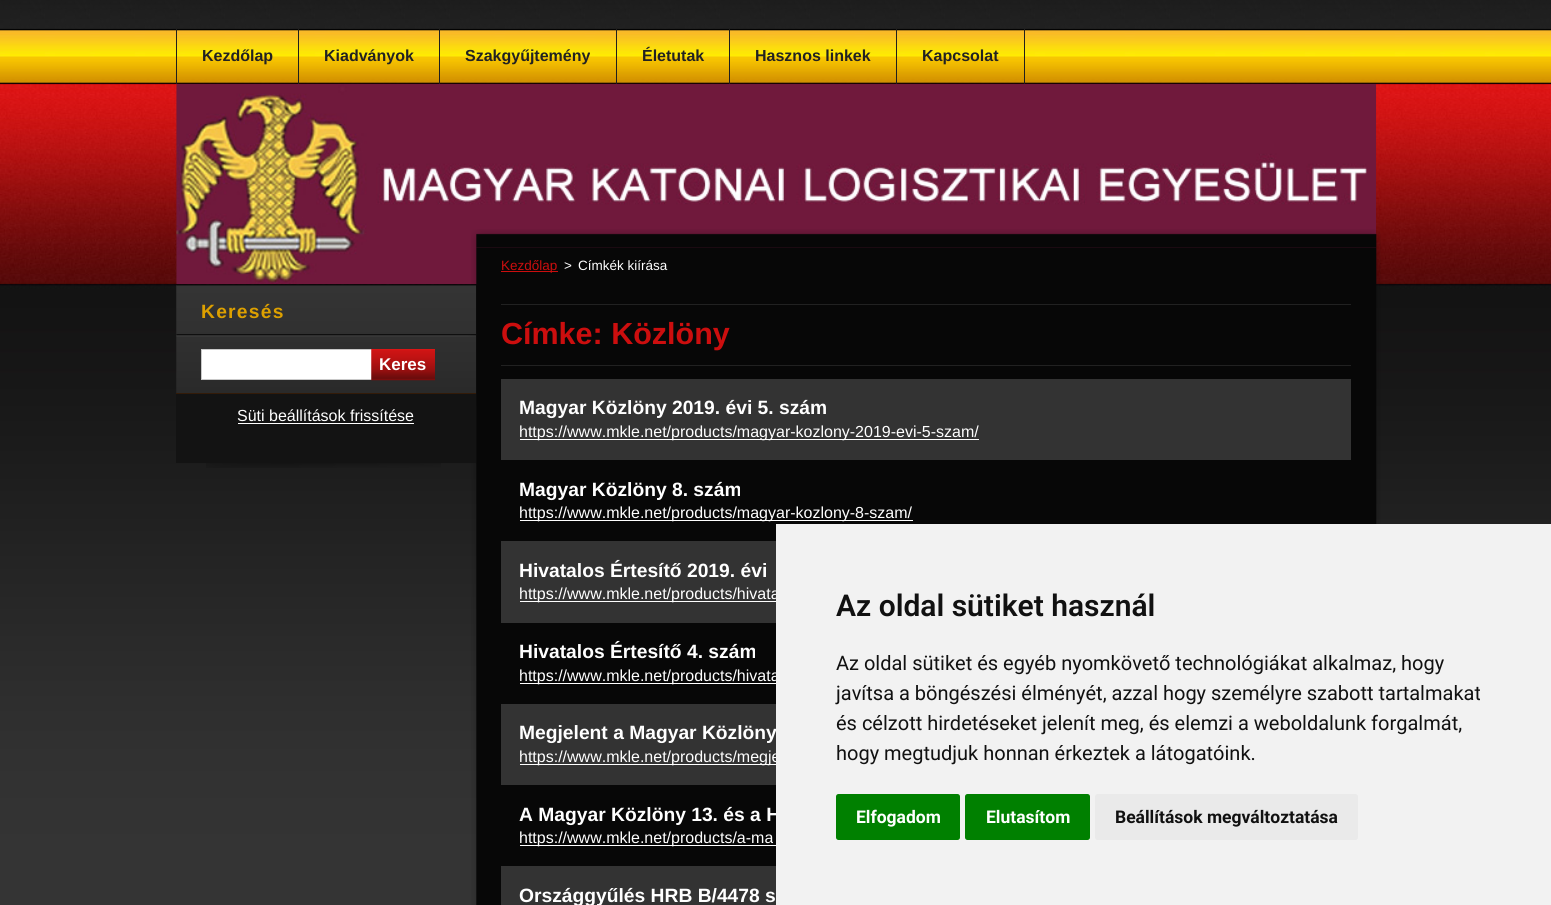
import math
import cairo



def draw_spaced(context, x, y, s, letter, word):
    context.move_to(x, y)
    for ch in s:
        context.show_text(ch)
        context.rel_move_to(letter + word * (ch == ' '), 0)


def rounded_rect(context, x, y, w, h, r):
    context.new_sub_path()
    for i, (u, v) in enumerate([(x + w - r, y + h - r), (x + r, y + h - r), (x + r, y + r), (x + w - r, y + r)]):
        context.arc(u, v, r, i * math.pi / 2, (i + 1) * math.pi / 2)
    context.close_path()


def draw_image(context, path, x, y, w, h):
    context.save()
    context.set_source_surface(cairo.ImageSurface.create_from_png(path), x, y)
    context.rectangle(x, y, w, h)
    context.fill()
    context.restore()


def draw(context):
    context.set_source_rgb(1, 1, 1)
    context.paint()
    draw_image(context, "images/1.png", 0, 0, 1551, 905)
    context.set_source_rgb(31 / 255, 31 / 255, 31 / 255)
    context.rectangle(298, 29, 1, 55)
    context.fill()
    context.rectangle(176, 29, 1, 55)
    context.fill()
    context.rectangle(439, 29, 1, 55)
    context.fill()
    context.rectangle(616, 29, 1, 55)
    context.fill()
    context.rectangle(729, 29, 1, 55)
    context.fill()
    context.rectangle(896, 29, 1, 55)
    context.fill()
    context.rectangle(1024, 29, 1, 55)
    context.fill()
    draw_image(context, "images/2.png", 176, 84, 1201, 200)
    draw_image(context, "images/3.png", 471, 229, 910, 19)
    draw_image(context, "images/4.png", 471, 247, 910, 658)
    draw_image(context, "images/5.png", 206, 463, 235, 5)
    draw_image(context, "images/6.png", 176, 286, 300, 107)
    context.set_source_rgb(51 / 255, 27 / 255, 8 / 255)
    context.rectangle(176, 393, 300, 1)
    context.fill()
    draw_image(context, "images/7.png", 176, 334, 300, 3)
    context.set_source_rgb(33 / 255, 33 / 255, 33 / 255)
    context.rectangle(176, 285, 300, 1)
    context.fill()
    context.set_source_rgb(1, 1, 1)
    context.rectangle(201.5, 349.5, 171, 30)
    context.fill_preserve()
    context.set_source_rgb(201 / 255, 201 / 255, 201 / 255)
    context.set_line_width(1)
    context.stroke()
    draw_image(context, "images/8.png", 371, 349, 64, 32)
    context.set_source_rgb(19 / 255, 19 / 255, 19 / 255)
    context.rectangle(176, 394, 300, 69)
    context.fill()
    context.set_source_rgb(1, 1, 1)
    context.rectangle(238, 423, 176, 1)
    context.fill()
    context.set_source_rgb(204 / 255, 14 / 255, 14 / 255)
    context.rectangle(501, 271, 57, 1)
    context.fill()
    context.set_source_rgb(33 / 255, 33 / 255, 33 / 255)
    context.rectangle(501, 304, 850, 1)
    context.fill()
    context.rectangle(501, 365, 850, 1)
    context.fill()
    context.set_source_rgb(51 / 255, 51 / 255, 51 / 255)
    context.rectangle(501, 379, 850, 81)
    context.fill()
    context.set_source_rgb(1, 1, 1)
    context.rectangle(520, 439, 459, 1)
    context.fill()
    context.rectangle(520, 520, 393, 1)
    context.fill()
    context.set_source_rgb(51 / 255, 51 / 255, 51 / 255)
    context.rectangle(501, 541, 275, 82)
    context.fill()
    context.set_source_rgb(1, 1, 1)
    context.rectangle(520, 601, 256, 1)
    context.fill()
    context.rectangle(520, 683, 256, 1)
    context.fill()
    context.set_source_rgb(51 / 255, 51 / 255, 51 / 255)
    context.rectangle(501, 704, 275, 81)
    context.fill()
    context.set_source_rgb(1, 1, 1)
    context.rectangle(520, 764, 256, 1)
    context.fill()
    context.rectangle(520, 845, 256, 1)
    context.fill()
    context.set_source_rgb(51 / 255, 51 / 255, 51 / 255)
    context.rectangle(501, 866, 275, 39)
    context.fill()
    context.select_font_face("Liberation Sans", cairo.FontSlant.NORMAL, cairo.FontWeight.BOLD)
    context.set_font_size(16)
    context.set_source_rgb(34 / 255, 34 / 255, 34 / 255)
    context.move_to(202, 61)
    context.show_text("Kezdőlap")
    context.move_to(324, 61)
    context.show_text("Kiadványok")
    context.move_to(465, 61)
    context.show_text("Szakgyűjtemény")
    context.move_to(642, 61)
    context.show_text("Életutak")
    context.move_to(755, 61)
    context.show_text("Hasznos linkek")
    context.move_to(922, 61)
    context.show_text("Kapcsolat")
    context.set_font_size(19.25)
    context.set_source_rgb(221 / 255, 160 / 255, 0)
    draw_spaced(context, 201, 318, "Keresés", 1.25, 0)
    context.set_font_size(17)
    context.set_source_rgb(1, 1, 1)
    context.move_to(379, 370)
    context.show_text("Keres")
    context.select_font_face("Liberation Sans")
    context.set_font_size(16)
    context.move_to(237, 421)
    context.show_text("Süti beállítások frissítése")
    context.set_font_size(13.5)
    context.set_source_rgb(204 / 255, 14 / 255, 14 / 255)
    context.move_to(501, 270)
    context.show_text("Kezdőlap")
    context.set_source_rgb(1, 1, 1)
    context.move_to(564, 270)
    context.show_text(">")
    context.move_to(578, 270)
    context.show_text("Címkék kiírása")
    context.select_font_face("Liberation Sans", cairo.FontSlant.NORMAL, cairo.FontWeight.BOLD)
    context.set_font_size(30.5)
    context.set_source_rgb(204 / 255, 14 / 255, 14 / 255)
    context.move_to(501, 344)
    context.show_text("Címke: Közlöny")
    context.set_font_size(19.25)
    context.set_source_rgb(1, 1, 1)
    context.move_to(519, 414)
    context.show_text("Magyar Közlöny 2019. évi 5. szám")
    context.select_font_face("Liberation Sans")
    context.set_font_size(16)
    context.move_to(519, 437)
    context.show_text("https://www.mkle.net/products/magyar-kozlony-2019-evi-5-szam/")
    context.select_font_face("Liberation Sans", cairo.FontSlant.NORMAL, cairo.FontWeight.BOLD)
    context.set_font_size(19.25)
    context.move_to(519, 496)
    context.show_text("Magyar Közlöny 8. szám")
    context.select_font_face("Liberation Sans")
    context.set_font_size(16)
    context.move_to(519, 518)
    context.show_text("https://www.mkle.net/products/magyar-kozlony-8-szam/")
    context.select_font_face("Liberation Sans", cairo.FontSlant.NORMAL, cairo.FontWeight.BOLD)
    context.set_font_size(19.25)
    context.move_to(519, 577)
    context.show_text("Hivatalos Értesítő 2019. évi")
    context.select_font_face("Liberation Sans")
    context.set_font_size(16)
    context.move_to(519, 599)
    context.show_text("https://www.mkle.net/products/hivata")
    context.select_font_face("Liberation Sans", cairo.FontSlant.NORMAL, cairo.FontWeight.BOLD)
    context.set_font_size(19.25)
    context.move_to(519, 658)
    context.show_text("Hivatalos Értesítő 4. szám")
    context.select_font_face("Liberation Sans")
    context.set_font_size(16)
    context.move_to(519, 681)
    context.show_text("https://www.mkle.net/products/hivata")
    context.select_font_face("Liberation Sans", cairo.FontSlant.NORMAL, cairo.FontWeight.BOLD)
    context.set_font_size(19.25)
    context.move_to(519, 739)
    context.show_text("Megjelent a Magyar Közlöny")
    context.select_font_face("Liberation Sans")
    context.set_font_size(16)
    context.move_to(519, 762)
    context.show_text("https://www.mkle.net/products/megje")
    context.select_font_face("Liberation Sans", cairo.FontSlant.NORMAL, cairo.FontWeight.BOLD)
    context.set_font_size(19.25)
    context.move_to(519, 821)
    context.show_text("A Magyar Közlöny 13. és a H")
    context.select_font_face("Liberation Sans")
    context.set_font_size(16)
    context.move_to(519, 843)
    context.show_text("https://www.mkle.net/products/a-ma")
    context.select_font_face("Liberation Sans", cairo.FontSlant.NORMAL, cairo.FontWeight.BOLD)
    context.set_font_size(19.25)
    context.move_to(519, 902)
    context.show_text("Országgyűlés HRB B/4478 s")
    context.set_source_rgb(242 / 255, 242 / 255, 242 / 255)
    context.rectangle(776, 524, 775, 381)
    context.fill()
    context.select_font_face("Roboto SemiBold")
    context.set_font_size(30)
    context.set_source_rgb(17 / 255, 17 / 255, 17 / 255)
    context.move_to(836, 616)
    context.show_text("Az oldal sütiket használ")
    context.select_font_face("Roboto")
    context.set_font_size(20)
    context.move_to(836, 670)
    context.show_text("Az oldal sütiket és egyéb nyomkövető technológiákat alkalmaz, hogy")
    context.move_to(836, 700)
    context.show_text("javítsa a böngészési élményét, azzal hogy személyre szabott tartalmakat")
    context.move_to(836, 730)
    context.show_text("és célzott hirdetéseket jelenít meg, és elemzi a weboldalunk forgalmát,")
    context.move_to(836, 760)
    context.show_text("hogy megtudjuk honnan érkeztek a látogatóink.")
    context.set_source_rgb(0, 128 / 255, 0)
    rounded_rect(context, 836, 794, 124, 46, 2.5)
    context.fill()
    context.select_font_face("Roboto", cairo.FontSlant.NORMAL, cairo.FontWeight.BOLD)
    context.set_font_size(17.5)
    context.set_source_rgb(1, 1, 1)
    context.move_to(856, 823)
    context.show_text("Elfogadom")
    context.set_source_rgb(0, 128 / 255, 0)
    rounded_rect(context, 965, 794, 125, 46, 2.5)
    context.fill()
    context.set_source_rgb(1, 1, 1)
    context.move_to(986, 823)
    context.show_text("Elutasítom")
    context.set_source_rgb(234 / 255, 234 / 255, 234 / 255)
    rounded_rect(context, 1095, 794, 263, 46, 2.5)
    context.fill()
    context.set_source_rgb(17 / 255, 17 / 255, 17 / 255)
    context.move_to(1115, 823)
    context.show_text("Beállítások megváltoztatása")


surface = cairo.ImageSurface(cairo.Format.RGB24, 1551, 905)
context = cairo.Context(surface)
options = cairo.FontOptions()
options.set_hint_metrics(cairo.HintMetrics.OFF)
options.set_hint_style(cairo.HintStyle.NONE)
context.set_font_options(options)
context.set_miter_limit(4)
draw(context)
surface.write_to_png("out.png")
